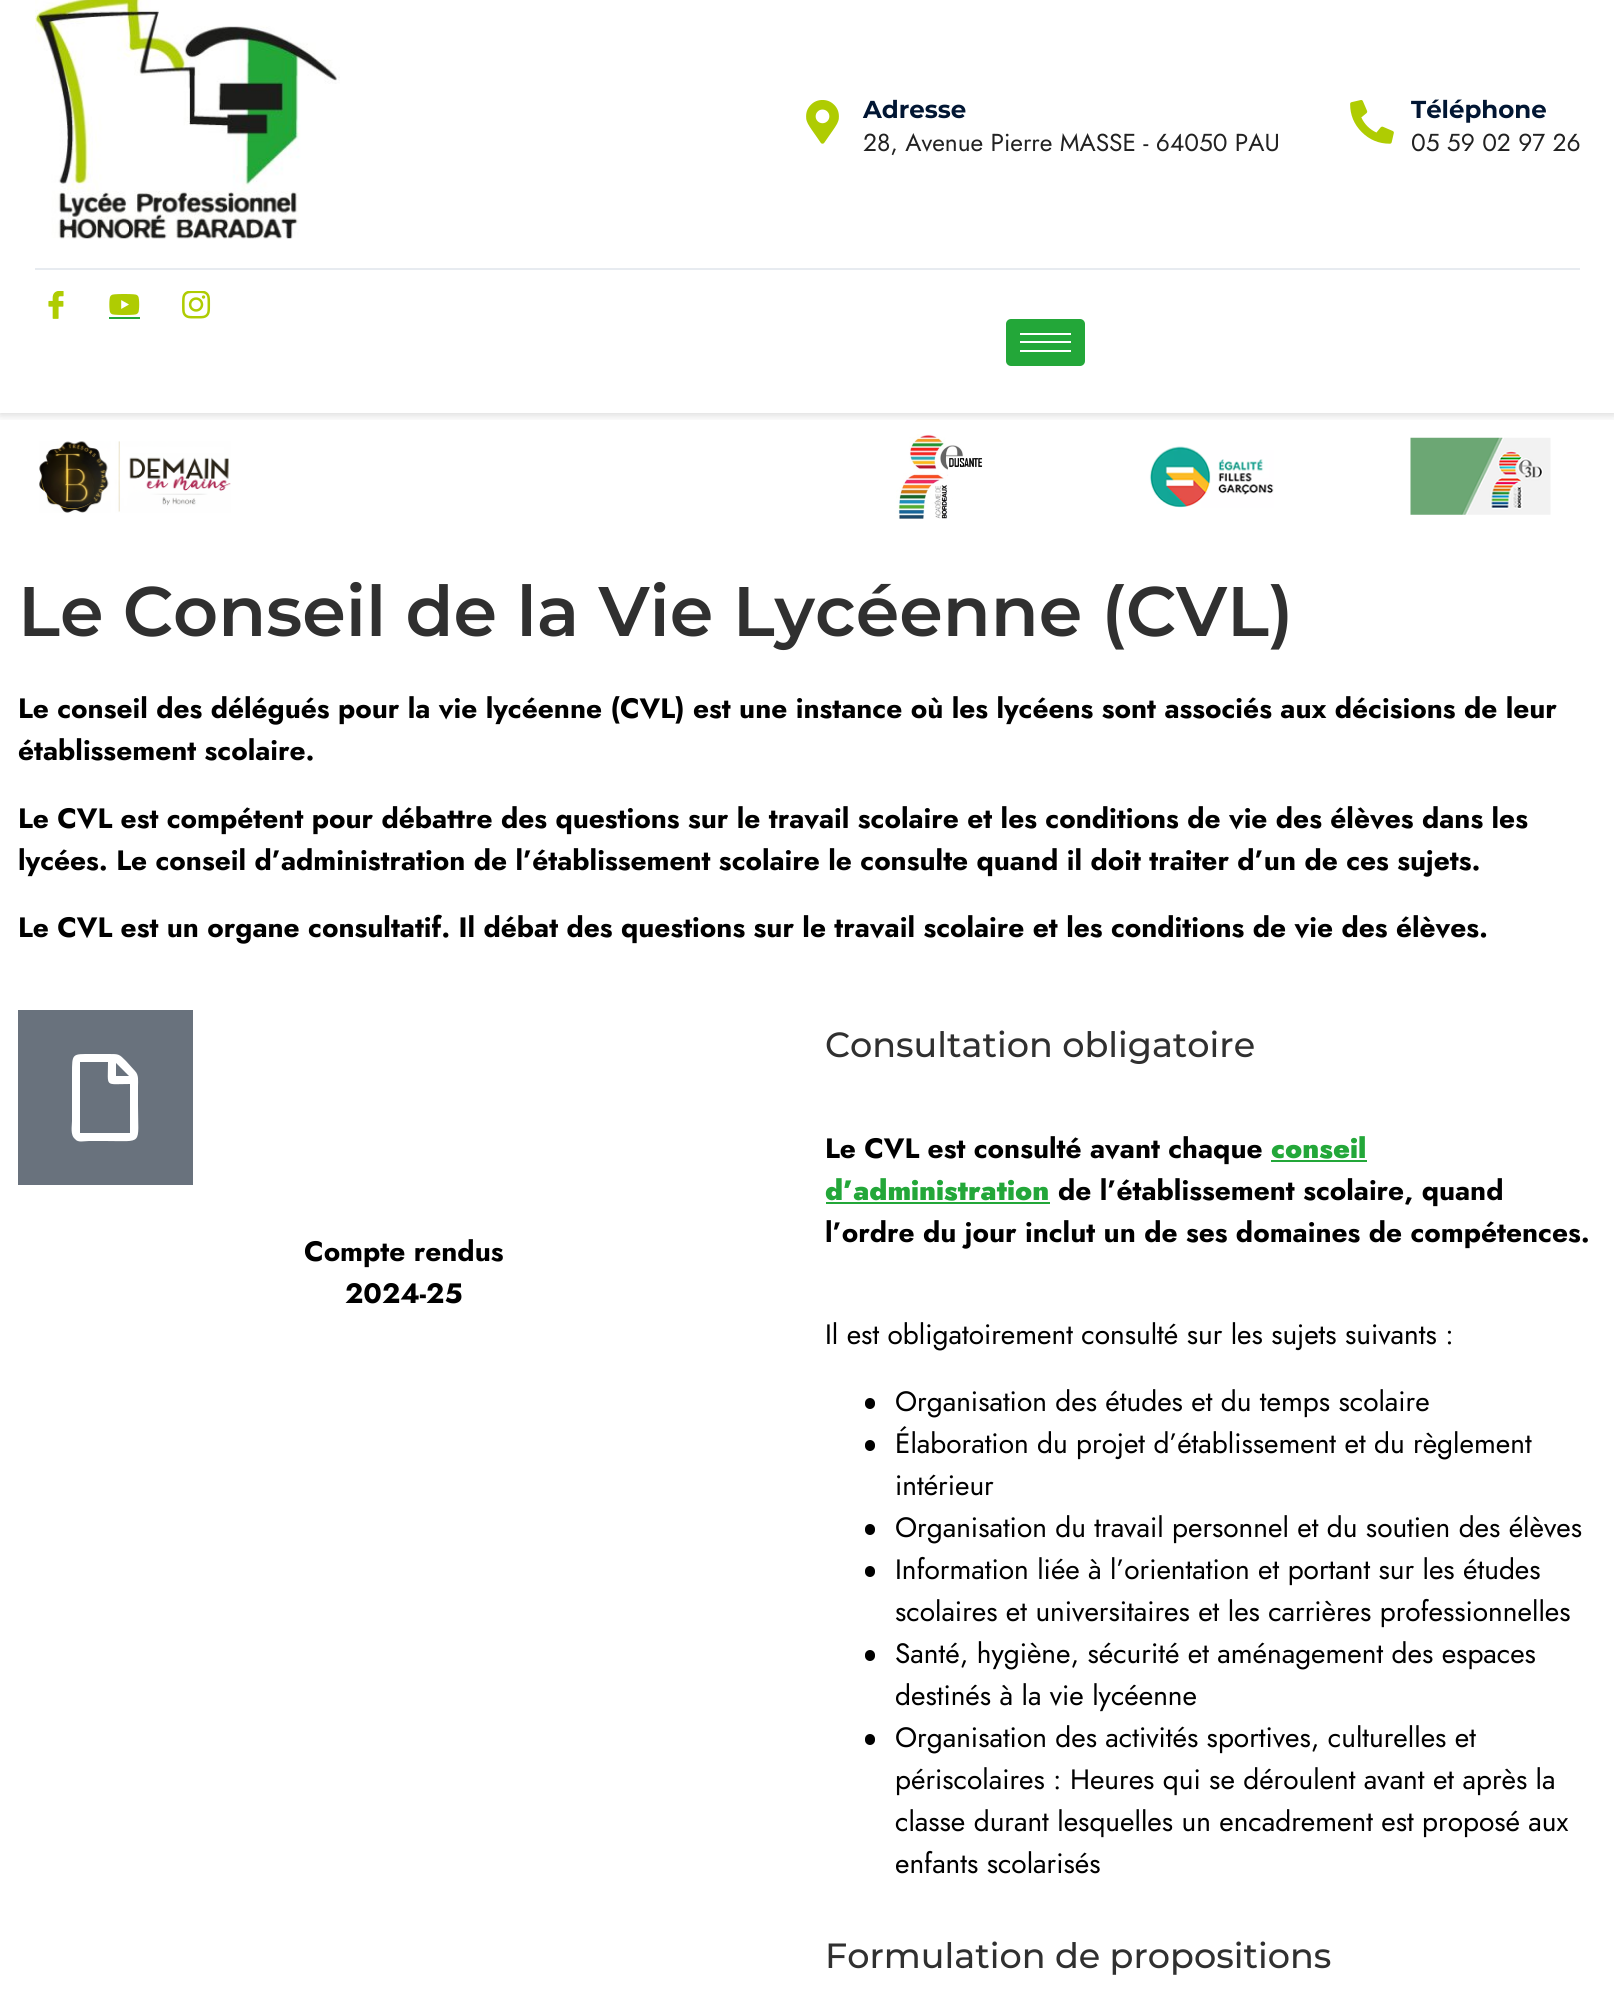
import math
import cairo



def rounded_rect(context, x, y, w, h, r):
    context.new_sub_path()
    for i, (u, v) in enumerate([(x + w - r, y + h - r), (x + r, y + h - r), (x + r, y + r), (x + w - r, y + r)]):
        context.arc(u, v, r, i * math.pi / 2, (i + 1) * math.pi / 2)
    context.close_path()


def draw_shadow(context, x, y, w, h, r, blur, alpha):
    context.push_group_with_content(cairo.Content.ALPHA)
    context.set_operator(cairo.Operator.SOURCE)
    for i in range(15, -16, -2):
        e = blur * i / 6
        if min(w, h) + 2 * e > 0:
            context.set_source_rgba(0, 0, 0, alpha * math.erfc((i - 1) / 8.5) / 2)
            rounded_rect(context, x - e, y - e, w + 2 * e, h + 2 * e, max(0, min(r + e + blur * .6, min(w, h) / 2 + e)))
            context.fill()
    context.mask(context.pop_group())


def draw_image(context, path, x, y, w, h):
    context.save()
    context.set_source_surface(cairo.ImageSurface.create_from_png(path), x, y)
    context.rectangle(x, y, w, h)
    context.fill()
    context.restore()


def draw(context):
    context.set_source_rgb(1, 1, 1)
    context.paint()
    context.save()
    context.rectangle(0, 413, 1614, 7)
    context.clip()
    context.set_source_rgb(0, 0, 0)
    draw_shadow(context, 0, -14, 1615, 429, 0, 4.5, 0.15)
    context.restore()
    draw_image(context, "images/1.png", 35, 0, 305, 239)
    draw_image(context, "images/2.png", 806, 100, 33, 44)
    draw_image(context, "images/3.png", 1350, 100, 44, 44)
    context.set_source_rgb(231 / 255, 235 / 255, 240 / 255)
    context.rectangle(35, 268, 1545, 2)
    context.fill()
    draw_image(context, "images/4.png", 48, 291, 16, 28)
    draw_image(context, "images/5.png", 109, 294, 31, 21)
    context.set_source_rgb(35 / 255, 167 / 255, 57 / 255)
    context.rectangle(109, 317, 31, 2)
    context.fill()
    draw_image(context, "images/6.png", 182, 291, 29, 28)
    rounded_rect(context, 1006, 319, 79, 47, 5)
    context.fill()
    context.set_source_rgb(1, 1, 1)
    context.rectangle(1020, 333, 51, 2)
    context.fill()
    context.rectangle(1020, 341, 51, 2)
    context.fill()
    context.rectangle(1020, 350, 51, 2)
    context.fill()
    draw_image(context, "images/7.png", 39, 441, 192, 72)
    draw_image(context, "images/8.png", 896, 434, 87, 85)
    draw_image(context, "images/9.png", 1149, 446, 125, 62)
    draw_image(context, "images/10.png", 1410, 437, 141, 78)
    context.set_source_rgb(105 / 255, 114 / 255, 125 / 255)
    context.rectangle(18, 1010, 175, 175)
    context.fill()
    context.set_source_rgb(1, 1, 1)
    context.new_path()
    context.move_to(135, 1071)
    context.curve_to(139, 1075, 138, 1081, 138, 1086)
    context.line_to(138, 1105)
    context.curve_to(138, 1146, 144, 1141, 105, 1141)
    context.line_to(89, 1141)
    context.curve_to(84, 1141, 78, 1143, 75, 1139)
    context.curve_to(70, 1135, 72, 1126, 72, 1121)
    context.line_to(72, 1074)
    context.curve_to(72, 1053, 72, 1054, 92, 1054)
    context.line_to(109, 1054)
    context.curve_to(119, 1054, 119, 1054, 126, 1061)
    context.close_path()
    context.move_to(129, 1076)
    context.line_to(116, 1063)
    context.line_to(116, 1076)
    context.close_path()
    context.move_to(80, 1133)
    context.line_to(130, 1133)
    context.line_to(130, 1084)
    context.curve_to(104, 1084, 108, 1088, 108, 1062)
    context.line_to(80, 1062)
    context.close_path()
    context.fill()
    context.set_source_rgb(35 / 255, 167 / 255, 57 / 255)
    context.rectangle(1271, 1160, 96, 2)
    context.fill()
    context.rectangle(826, 1202, 224, 2)
    context.fill()
    context.set_source_rgb(0, 0, 0)
    rounded_rect(context, 865, 1398, 10, 11, 5)
    context.fill()
    rounded_rect(context, 865, 1440, 10, 11, 5)
    context.fill()
    rounded_rect(context, 865, 1524, 10, 11, 5)
    context.fill()
    rounded_rect(context, 865, 1566, 10, 11, 5)
    context.fill()
    rounded_rect(context, 865, 1650, 10, 11, 5)
    context.fill()
    rounded_rect(context, 865, 1734, 10, 11, 5)
    context.fill()
    context.select_font_face("Montserrat", cairo.FontSlant.NORMAL, cairo.FontWeight.BOLD)
    context.set_font_size(24.5)
    context.set_source_rgb(1 / 255, 22 / 255, 51 / 255)
    context.move_to(863, 118)
    context.show_text("Adresse")
    context.select_font_face("Jost")
    context.set_source_rgb(34 / 255, 34 / 255, 34 / 255)
    context.move_to(863, 151)
    context.show_text("28, Avenue Pierre MASSE - 64050 PAU")
    context.select_font_face("Montserrat", cairo.FontSlant.NORMAL, cairo.FontWeight.BOLD)
    context.set_source_rgb(1 / 255, 22 / 255, 51 / 255)
    context.move_to(1411, 118)
    context.show_text("Téléphone")
    context.select_font_face("Jost")
    context.set_source_rgb(34 / 255, 34 / 255, 34 / 255)
    context.move_to(1411, 151)
    context.show_text("05 59 02 97 26")
    context.select_font_face("Montserrat SemiBold")
    context.set_font_size(70)
    context.set_source_rgb(48 / 255, 48 / 255, 48 / 255)
    context.move_to(18, 636)
    context.show_text("Le Conseil de la Vie Lycéenne (CVL)")
    context.select_font_face("Jost", cairo.FontSlant.NORMAL, cairo.FontWeight.BOLD)
    context.set_font_size(28)
    context.set_source_rgb(0, 0, 0)
    context.move_to(18, 718)
    context.show_text("Le conseil des délégués pour la vie lycéenne (CVL) est une instance où les lycéens sont associés aux décisions de leur")
    context.move_to(18, 760)
    context.show_text("établissement scolaire.")
    context.move_to(18, 828)
    context.show_text("Le CVL est compétent pour débattre des questions sur le travail scolaire et les conditions de vie des élèves dans les")
    context.move_to(18, 870)
    context.show_text("lycées. Le conseil d’administration de l’établissement scolaire le consulte quand il doit traiter d’un de ces sujets.")
    context.move_to(18, 937)
    context.show_text("Le CVL est un organe consultatif. Il débat des questions sur le travail scolaire et les conditions de vie des élèves.")
    context.move_to(304, 1261)
    context.show_text("Compte rendus")
    context.move_to(345, 1303)
    context.show_text("2024-25")
    context.select_font_face("Montserrat Medium")
    context.set_font_size(35)
    context.set_source_rgb(48 / 255, 48 / 255, 48 / 255)
    context.move_to(825, 1057)
    context.show_text("Consultation obligatoire")
    context.select_font_face("Jost", cairo.FontSlant.NORMAL, cairo.FontWeight.BOLD)
    context.set_font_size(28)
    context.set_source_rgb(0, 0, 0)
    context.move_to(825, 1158)
    context.show_text("Le CVL est consulté avant chaque")
    context.select_font_face("Jost Black")
    context.set_source_rgb(35 / 255, 167 / 255, 57 / 255)
    context.move_to(1271, 1158)
    context.show_text("conseil")
    context.move_to(825, 1200)
    context.show_text("d’administration")
    context.select_font_face("Jost", cairo.FontSlant.NORMAL, cairo.FontWeight.BOLD)
    context.set_source_rgb(0, 0, 0)
    context.move_to(1058, 1200)
    context.show_text("de l’établissement scolaire, quand")
    context.move_to(825, 1242)
    context.show_text("l’ordre du jour inclut un de ses domaines de compétences.")
    context.select_font_face("Jost")
    context.move_to(825, 1344)
    context.show_text("Il est obligatoirement consulté sur les sujets suivants :")
    context.move_to(895, 1411)
    context.show_text("Organisation des études et du temps scolaire")
    context.move_to(895, 1453)
    context.show_text("Élaboration du projet d’établissement et du règlement")
    context.move_to(895, 1495)
    context.show_text("intérieur")
    context.move_to(895, 1537)
    context.show_text("Organisation du travail personnel et du soutien des élèves")
    context.move_to(895, 1579)
    context.show_text("Information liée à l’orientation et portant sur les études")
    context.move_to(895, 1621)
    context.show_text("scolaires et universitaires et les carrières professionnelles")
    context.move_to(895, 1663)
    context.show_text("Santé, hygiène, sécurité et aménagement des espaces")
    context.move_to(895, 1705)
    context.show_text("destinés à la vie lycéenne")
    context.move_to(895, 1747)
    context.show_text("Organisation des activités sportives, culturelles et")
    context.move_to(895, 1789)
    context.show_text("périscolaires : Heures qui se déroulent avant et après la")
    context.move_to(895, 1831)
    context.show_text("classe durant lesquelles un encadrement est proposé aux")
    context.move_to(895, 1873)
    context.show_text("enfants scolarisés")
    context.select_font_face("Montserrat Medium")
    context.set_font_size(35)
    context.set_source_rgb(48 / 255, 48 / 255, 48 / 255)
    context.move_to(825, 1968)
    context.show_text("Formulation de propositions")


surface = cairo.ImageSurface(cairo.Format.RGB24, 1614, 2015)
context = cairo.Context(surface)
options = cairo.FontOptions()
options.set_hint_metrics(cairo.HintMetrics.OFF)
options.set_hint_style(cairo.HintStyle.NONE)
context.set_font_options(options)
context.set_miter_limit(4)
draw(context)
surface.write_to_png("out.png")
